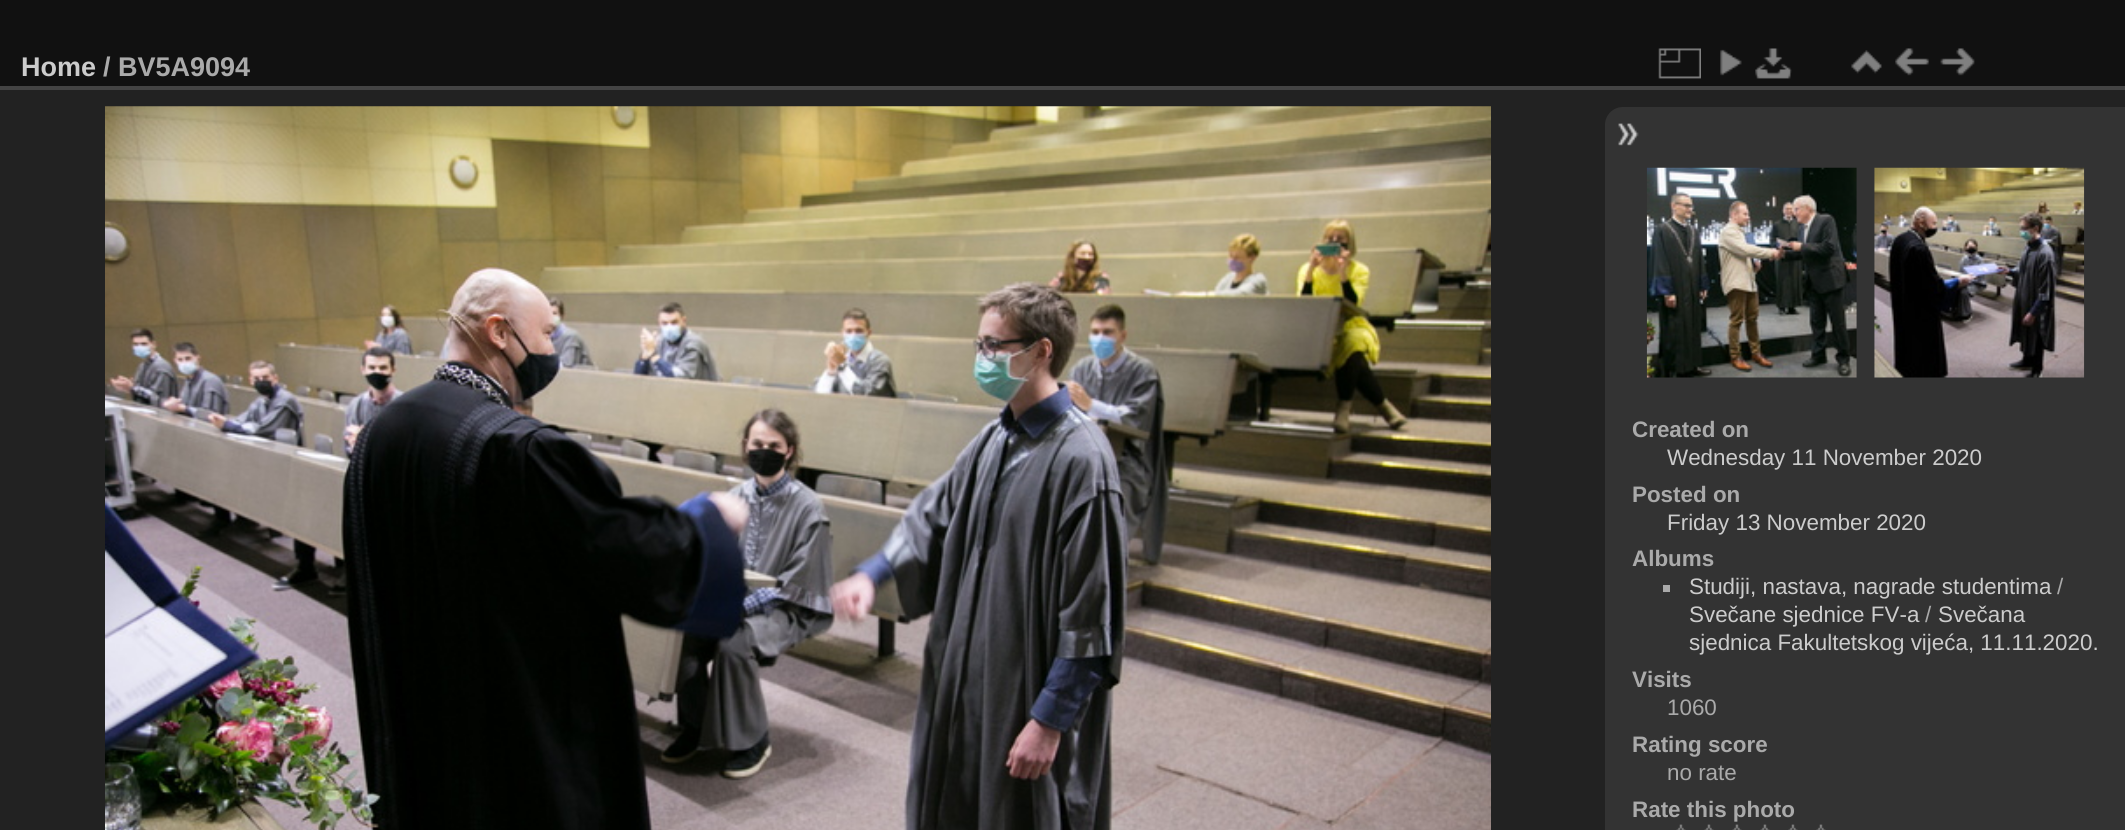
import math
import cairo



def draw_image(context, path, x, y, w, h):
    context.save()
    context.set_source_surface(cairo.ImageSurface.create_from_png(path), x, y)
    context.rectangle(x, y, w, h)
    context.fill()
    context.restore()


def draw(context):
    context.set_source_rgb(17 / 255, 17 / 255, 17 / 255)
    context.paint()
    context.set_source_rgb(34 / 255, 34 / 255, 34 / 255)
    context.rectangle(0, 90, 2125, 740)
    context.fill()
    context.set_source_rgb(68 / 255, 68 / 255, 68 / 255)
    context.rectangle(0, 86, 2125, 4)
    context.fill()
    draw_image(context, "images/1.png", 1658, 48, 43, 31)
    draw_image(context, "images/2.png", 1720, 49, 22, 27)
    draw_image(context, "images/3.png", 1755, 48, 37, 31)
    draw_image(context, "images/4.png", 1851, 50, 31, 24)
    draw_image(context, "images/5.png", 1895, 48, 34, 28)
    draw_image(context, "images/6.png", 1940, 48, 35, 28)
    draw_image(context, "images/7.png", 105, 106, 1386, 724)
    context.set_source_rgb(51 / 255, 51 / 255, 51 / 255)
    context.new_path()
    context.move_to(1623, 107)
    context.line_to(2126, 107)
    context.line_to(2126, 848)
    context.line_to(1623, 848)
    context.curve_to(1613, 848, 1605, 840, 1605, 830)
    context.line_to(1605, 125)
    context.curve_to(1605, 115, 1613, 107, 1623, 107)
    context.close_path()
    context.fill()
    draw_image(context, "images/8.png", 1618, 123, 21, 23)
    draw_image(context, "images/9.png", 1646, 167, 211, 211)
    draw_image(context, "images/10.png", 1874, 167, 211, 211)
    context.set_source_rgb(170 / 255, 170 / 255, 170 / 255)
    context.rectangle(1663, 585, 7, 7)
    context.fill()
    draw_image(context, "images/11.png", 1676, 824, 10, 6)
    draw_image(context, "images/11.png", 1704, 824, 10, 6)
    draw_image(context, "images/11.png", 1732, 824, 10, 6)
    draw_image(context, "images/11.png", 1760, 824, 10, 6)
    draw_image(context, "images/12.png", 1788, 824, 10, 6)
    draw_image(context, "images/12.png", 1816, 824, 10, 6)
    context.select_font_face("Liberation Sans", cairo.FontSlant.NORMAL, cairo.FontWeight.BOLD)
    context.set_font_size(27)
    context.set_source_rgb(204 / 255, 204 / 255, 204 / 255)
    context.move_to(21, 76)
    context.show_text("Home")
    context.set_source_rgb(170 / 255, 170 / 255, 170 / 255)
    context.move_to(103, 76)
    context.show_text("/ BV5A9094")
    context.set_font_size(22.4)
    context.move_to(1632, 437)
    context.show_text("Created on")
    context.select_font_face("Liberation Sans")
    context.set_source_rgb(204 / 255, 204 / 255, 204 / 255)
    context.move_to(1667, 465)
    context.show_text("Wednesday 11 November 2020")
    context.select_font_face("Liberation Sans", cairo.FontSlant.NORMAL, cairo.FontWeight.BOLD)
    context.set_source_rgb(170 / 255, 170 / 255, 170 / 255)
    context.move_to(1632, 502)
    context.show_text("Posted on")
    context.select_font_face("Liberation Sans")
    context.set_source_rgb(204 / 255, 204 / 255, 204 / 255)
    context.move_to(1667, 530)
    context.show_text("Friday 13 November 2020")
    context.select_font_face("Liberation Sans", cairo.FontSlant.NORMAL, cairo.FontWeight.BOLD)
    context.set_source_rgb(170 / 255, 170 / 255, 170 / 255)
    context.move_to(1632, 566)
    context.show_text("Albums")
    context.select_font_face("Liberation Sans")
    context.set_source_rgb(204 / 255, 204 / 255, 204 / 255)
    context.move_to(1689, 594)
    context.show_text("Studiji, nastava, nagrade studentima")
    context.set_source_rgb(170 / 255, 170 / 255, 170 / 255)
    context.move_to(2057, 594)
    context.show_text("/")
    context.set_source_rgb(204 / 255, 204 / 255, 204 / 255)
    context.move_to(1689, 622)
    context.show_text("Svečane sjednice FV-a")
    context.set_source_rgb(170 / 255, 170 / 255, 170 / 255)
    context.move_to(1925, 622)
    context.show_text("/")
    context.set_source_rgb(204 / 255, 204 / 255, 204 / 255)
    context.move_to(1938, 622)
    context.show_text("Svečana")
    context.move_to(1689, 650)
    context.show_text("sjednica Fakultetskog vijeća, 11.11.2020.")
    context.select_font_face("Liberation Sans", cairo.FontSlant.NORMAL, cairo.FontWeight.BOLD)
    context.set_source_rgb(170 / 255, 170 / 255, 170 / 255)
    context.move_to(1632, 687)
    context.show_text("Visits")
    context.select_font_face("Liberation Sans")
    context.move_to(1667, 715)
    context.show_text("1060")
    context.select_font_face("Liberation Sans", cairo.FontSlant.NORMAL, cairo.FontWeight.BOLD)
    context.move_to(1632, 752)
    context.show_text("Rating score")
    context.select_font_face("Liberation Sans")
    context.move_to(1667, 780)
    context.show_text("no rate")
    context.select_font_face("Liberation Sans", cairo.FontSlant.NORMAL, cairo.FontWeight.BOLD)
    context.move_to(1632, 817)
    context.show_text("Rate this photo")


surface = cairo.ImageSurface(cairo.Format.RGB24, 2125, 830)
context = cairo.Context(surface)
options = cairo.FontOptions()
options.set_hint_metrics(cairo.HintMetrics.OFF)
options.set_hint_style(cairo.HintStyle.NONE)
context.set_font_options(options)
context.set_miter_limit(4)
draw(context)
surface.write_to_png("out.png")
